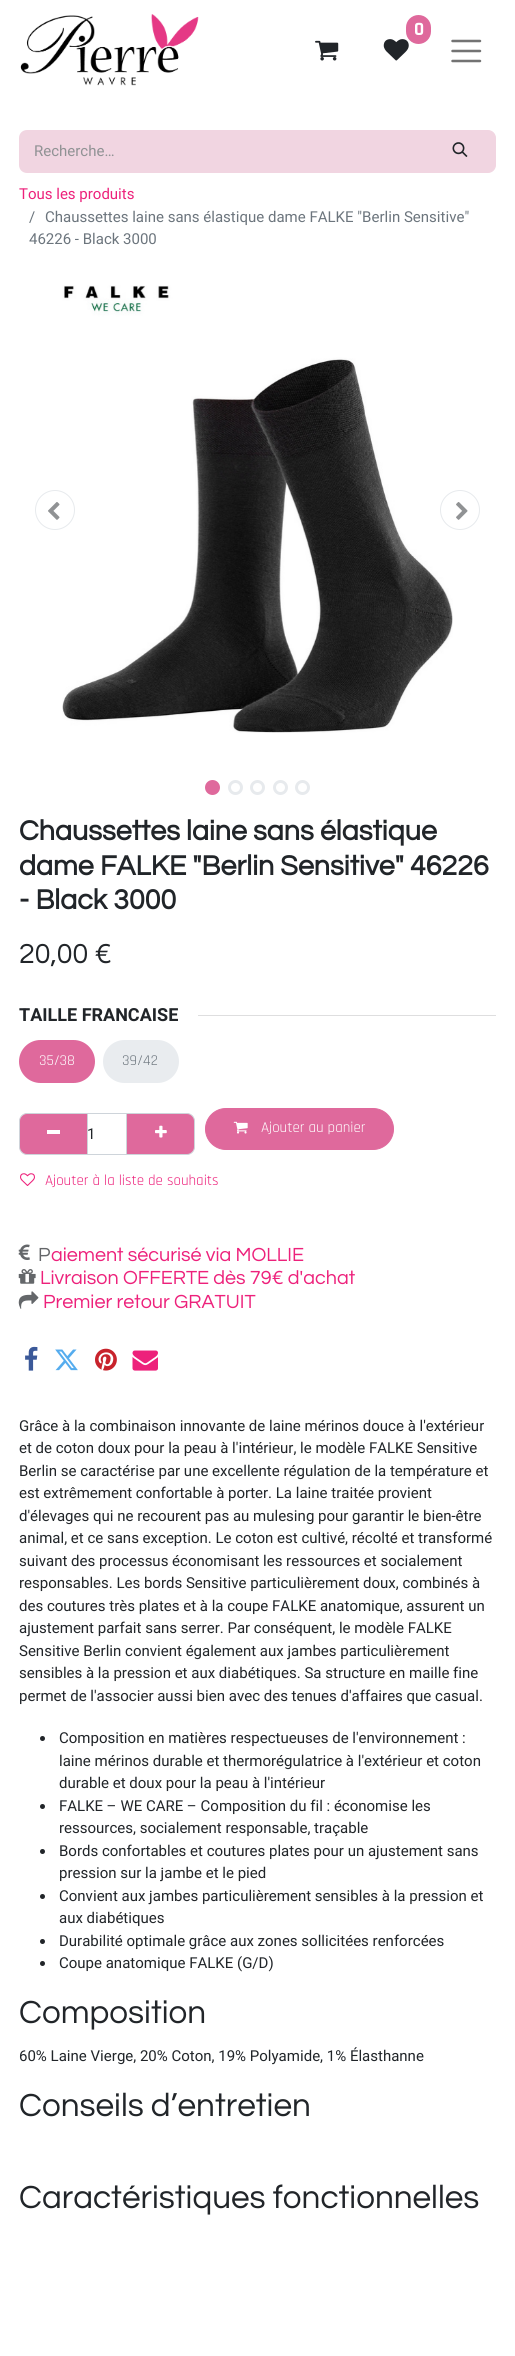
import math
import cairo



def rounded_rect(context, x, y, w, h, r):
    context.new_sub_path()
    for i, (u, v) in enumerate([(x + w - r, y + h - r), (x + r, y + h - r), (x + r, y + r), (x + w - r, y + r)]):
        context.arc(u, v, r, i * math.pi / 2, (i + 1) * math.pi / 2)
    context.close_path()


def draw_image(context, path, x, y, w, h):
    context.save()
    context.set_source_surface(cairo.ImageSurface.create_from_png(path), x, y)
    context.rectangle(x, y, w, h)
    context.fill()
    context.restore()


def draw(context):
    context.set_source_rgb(1, 1, 1)
    context.paint()
    draw_image(context, "images/1.png", 20, 14, 179, 72)
    draw_image(context, "images/2.png", 383, 39, 26, 22)
    context.set_source_rgb(223 / 255, 105 / 255, 156 / 255)
    rounded_rect(context, 406, 15, 25, 29, 12.5)
    context.fill()
    draw_image(context, "images/3.png", 315, 40, 24, 21)
    context.new_path()
    context.move_to(452.5, 41)
    context.line_to(480, 41)
    context.move_to(452.5, 51)
    context.line_to(480, 51)
    context.move_to(452.5, 61)
    context.line_to(480, 61)
    context.set_source_rgb(115 / 255, 115 / 255, 115 / 255)
    context.set_line_width(2.5)
    context.set_line_cap(cairo.LineCap.ROUND)
    context.stroke()
    context.set_source_rgb(241 / 255, 213 / 255, 225 / 255)
    context.new_path()
    context.move_to(27, 130)
    context.line_to(426, 130)
    context.line_to(426, 173)
    context.line_to(27, 173)
    context.curve_to(22.5, 173, 19, 169.5, 19, 165)
    context.line_to(19, 138)
    context.curve_to(19, 133.5, 22.5, 130, 27, 130)
    context.close_path()
    context.fill()
    context.new_path()
    context.move_to(425.5, 130.5)
    context.line_to(488, 130.5)
    context.curve_to(492, 130.5, 495.5, 134, 495.5, 138)
    context.line_to(495.5, 165)
    context.curve_to(495.5, 169, 492, 172.5, 488, 172.5)
    context.line_to(425.5, 172.5)
    context.close_path()
    context.fill_preserve()
    context.set_line_width(1)
    context.set_line_cap(cairo.LineCap.BUTT)
    context.stroke()
    draw_image(context, "images/4.png", 452, 142, 16, 15)
    draw_image(context, "images/6.png", 62, 285, 391, 448)
    context.arc(55, 510, 19.5, 0, 2 * math.pi)
    context.set_source_rgb(231 / 255, 234 / 255, 237 / 255)
    context.stroke()
    draw_image(context, "images/5.png", 48, 502, 12, 18)
    context.arc(460, 510, 19.5, 0, 2 * math.pi)
    context.stroke()
    draw_image(context, "images/7.png", 456, 502, 12, 18)
    context.set_source_rgb(223 / 255, 105 / 255, 156 / 255)
    context.arc(212.5, 787.5, 6, 0, 2 * math.pi)
    context.fill_preserve()
    context.set_line_width(3)
    context.stroke()
    context.arc(235.5, 787.5, 6, 0, 2 * math.pi)
    context.set_source_rgb(231 / 255, 234 / 255, 237 / 255)
    context.stroke()
    context.arc(257.5, 787.5, 6, 0, 2 * math.pi)
    context.stroke()
    context.arc(280.5, 787.5, 6, 0, 2 * math.pi)
    context.stroke()
    context.arc(302.5, 787.5, 6, 0, 2 * math.pi)
    context.stroke()
    context.set_source_rgb(222 / 255, 222 / 255, 223 / 255)
    context.rectangle(198, 1015, 298, 1)
    context.fill()
    context.set_source_rgb(223 / 255, 105 / 255, 156 / 255)
    rounded_rect(context, 19, 1040, 76, 43, 21.5)
    context.fill()
    context.set_source_rgb(233 / 255, 236 / 255, 239 / 255)
    rounded_rect(context, 103, 1040, 76, 43, 21.5)
    context.fill()
    context.rectangle(86.5, 1113.5, 41, 41)
    context.set_source_rgb(206 / 255, 212 / 255, 218 / 255)
    context.set_line_width(1)
    context.stroke()
    context.set_source_rgb(223 / 255, 105 / 255, 156 / 255)
    context.new_path()
    context.move_to(27, 1113.5)
    context.line_to(87.5, 1113.5)
    context.line_to(87.5, 1154.5)
    context.line_to(27, 1154.5)
    context.curve_to(23, 1154.5, 19.5, 1151, 19.5, 1147)
    context.line_to(19.5, 1121)
    context.curve_to(19.5, 1117, 23, 1113.5, 27, 1113.5)
    context.close_path()
    context.fill_preserve()
    context.set_source_rgb(206 / 255, 212 / 255, 218 / 255)
    context.stroke()
    context.set_source_rgb(1, 1, 1)
    context.rectangle(47, 1130, 13, 4)
    context.fill()
    context.set_source_rgb(223 / 255, 105 / 255, 156 / 255)
    context.new_path()
    context.move_to(126.5, 1113.5)
    context.line_to(187, 1113.5)
    context.curve_to(191, 1113.5, 194.5, 1117, 194.5, 1121)
    context.line_to(194.5, 1147)
    context.curve_to(194.5, 1151, 191, 1154.5, 187, 1154.5)
    context.line_to(126.5, 1154.5)
    context.close_path()
    context.fill_preserve()
    context.set_source_rgb(206 / 255, 212 / 255, 218 / 255)
    context.stroke()
    draw_image(context, "images/8.png", 155, 1125, 12, 13)
    context.set_source_rgb(223 / 255, 105 / 255, 156 / 255)
    rounded_rect(context, 205.5, 1108.5, 188, 41, 20.5)
    context.fill_preserve()
    context.stroke()
    draw_image(context, "images/9.png", 233, 1121, 15, 13)
    draw_image(context, "images/10.png", 20, 1173, 15, 13)
    draw_image(context, "images/11.png", 18, 1244, 12, 16)
    draw_image(context, "images/12.png", 18, 1269, 18, 15)
    draw_image(context, "images/13.png", 18, 1291, 21, 18)
    draw_image(context, "images/14.png", 25, 1346, 13, 25)
    draw_image(context, "images/15.png", 55, 1349, 23, 22)
    draw_image(context, "images/16.png", 95, 1348, 22, 23)
    draw_image(context, "images/17.png", 132, 1350, 26, 21)
    context.set_source_rgb(33 / 255, 37 / 255, 41 / 255)
    context.arc(42.5, 1738.5, 2.5, 0, 2 * math.pi)
    context.fill()
    context.arc(42.5, 1806.5, 2.5, 0, 2 * math.pi)
    context.fill()
    context.arc(42.5, 1851.5, 2.5, 0, 2 * math.pi)
    context.fill()
    context.arc(42.5, 1896.5, 2.5, 0, 2 * math.pi)
    context.fill()
    context.arc(42.5, 1941.5, 2.5, 0, 2 * math.pi)
    context.fill()
    context.arc(42.5, 1963.5, 2.5, 0, 2 * math.pi)
    context.fill()
    context.select_font_face("Rajdhani", cairo.FontSlant.NORMAL, cairo.FontWeight.BOLD)
    context.set_font_size(19)
    context.set_source_rgb(1, 1, 1)
    context.move_to(414, 35)
    context.show_text("0")
    context.select_font_face("Heebo")
    context.set_font_size(15)
    context.set_source_rgb(144 / 255, 146 / 255, 148 / 255)
    context.move_to(34, 156)
    context.show_text("Recherche…")
    context.set_source_rgb(237 / 255, 33 / 255, 123 / 255)
    context.move_to(19, 199)
    context.show_text("Tous les produits")
    context.set_source_rgb(108 / 255, 117 / 255, 125 / 255)
    context.move_to(29, 222)
    context.show_text("/")
    context.move_to(45, 222)
    context.show_text("Chaussettes laine sans élastique dame FALKE \"Berlin Sensitive\"")
    context.move_to(29, 244)
    context.show_text("46226 - Black 3000")
    context.select_font_face("Questrial", cairo.FontSlant.NORMAL, cairo.FontWeight.BOLD)
    context.set_font_size(28.6)
    context.set_source_rgb(33 / 255, 37 / 255, 41 / 255)
    context.move_to(19, 840)
    context.show_text("Chaussettes laine sans élastique")
    context.move_to(19, 875)
    context.show_text("dame FALKE \"Berlin Sensitive\" 46226")
    context.move_to(19, 909)
    context.show_text("- Black 3000")
    context.select_font_face("Questrial")
    context.move_to(19, 963)
    context.show_text("20,00 €")
    context.select_font_face("Heebo", cairo.FontSlant.NORMAL, cairo.FontWeight.BOLD)
    context.set_font_size(18)
    context.move_to(19, 1021)
    context.show_text("TAILLE FRANCAISE")
    context.select_font_face("Rajdhani")
    context.set_font_size(15)
    context.set_source_rgb(1, 1, 1)
    context.move_to(39, 1065)
    context.show_text("35/38")
    context.set_source_rgb(108 / 255, 117 / 255, 125 / 255)
    context.move_to(122, 1065)
    context.show_text("39/42")
    context.select_font_face("Heebo")
    context.set_source_rgb(33 / 255, 37 / 255, 41 / 255)
    context.move_to(87, 1139)
    context.show_text("1")
    context.select_font_face("Rajdhani")
    context.set_source_rgb(1, 1, 1)
    context.move_to(261, 1132)
    context.show_text("Ajouter au panier")
    context.set_source_rgb(237 / 255, 33 / 255, 123 / 255)
    context.move_to(45, 1185)
    context.show_text("Ajouter à la liste de souhaits")
    context.select_font_face("Questrial")
    context.set_font_size(19.75)
    context.set_source_rgb(100 / 255, 102 / 255, 105 / 255)
    context.move_to(38, 1261)
    context.show_text("P")
    context.set_source_rgb(237 / 255, 33 / 255, 123 / 255)
    context.move_to(51, 1261)
    context.show_text("aiement sécurisé via MOLLIE")
    context.move_to(40, 1284)
    context.show_text("Livraison OFFERTE dès 79€ d'achat")
    context.move_to(43, 1308)
    context.show_text("Premier retour GRATUIT")
    context.select_font_face("Heebo")
    context.set_font_size(15)
    context.set_source_rgb(33 / 255, 37 / 255, 41 / 255)
    context.move_to(19, 1431)
    context.show_text("Grâce à la combinaison innovante de laine mérinos douce à l'extérieur")
    context.move_to(19, 1453)
    context.show_text("et de coton doux pour la peau à l'intérieur, le modèle FALKE Sensitive")
    context.move_to(19, 1476)
    context.show_text("Berlin se caractérise par une excellente régulation de la température et")
    context.move_to(19, 1498)
    context.show_text("est extrêmement confortable à porter. La laine traitée provient")
    context.move_to(19, 1521)
    context.show_text("d'élevages qui ne recourent pas au mulesing pour garantir le bien-être")
    context.move_to(19, 1543)
    context.show_text("animal, et ce sans exception. Le coton est cultivé, récolté et transformé")
    context.move_to(19, 1566)
    context.show_text("suivant des processus économisant les ressources et socialement")
    context.move_to(19, 1588)
    context.show_text("responsables. Les bords Sensitive particulièrement doux, combinés à")
    context.move_to(19, 1611)
    context.show_text("des coutures très plates et à la coupe FALKE anatomique, assurent un")
    context.move_to(19, 1633)
    context.show_text("ajustement parfait sans serrer. Par conséquent, le modèle FALKE")
    context.move_to(19, 1656)
    context.show_text("Sensitive Berlin convient également aux jambes particulièrement")
    context.move_to(19, 1678)
    context.show_text("sensibles à la pression et aux diabétiques. Sa structure en maille fine")
    context.move_to(19, 1701)
    context.show_text("permet de l'associer aussi bien avec des tenues d'affaires que casual.")
    context.move_to(59, 1743)
    context.show_text("Composition en matières respectueuses de l'environnement :")
    context.move_to(59, 1766)
    context.show_text("laine mérinos durable et thermorégulatrice à l'extérieur et coton")
    context.move_to(59, 1788)
    context.show_text("durable et doux pour la peau à l'intérieur")
    context.move_to(59, 1811)
    context.show_text("FALKE – WE CARE – Composition du fil : économise les")
    context.move_to(59, 1833)
    context.show_text("ressources, socialement responsable, traçable")
    context.move_to(59, 1856)
    context.show_text("Bords confortables et coutures plates pour un ajustement sans")
    context.move_to(59, 1878)
    context.show_text("pression sur la jambe et le pied")
    context.move_to(59, 1901)
    context.show_text("Convient aux jambes particulièrement sensibles à la pression et")
    context.move_to(59, 1923)
    context.show_text("aux diabétiques")
    context.move_to(59, 1946)
    context.show_text("Durabilité optimale grâce aux zones sollicitées renforcées")
    context.move_to(59, 1968)
    context.show_text("Coupe anatomique FALKE (G/D)")
    context.select_font_face("Questrial")
    context.set_font_size(33.25)
    context.move_to(19, 2023)
    context.show_text("Composition")
    context.select_font_face("Heebo")
    context.set_font_size(15)
    context.move_to(19, 2061)
    context.show_text("60% Laine Vierge, 20% Coton, 19% Polyamide, 1% Élasthanne")
    context.select_font_face("Questrial")
    context.set_font_size(33.25)
    context.move_to(19, 2116)
    context.show_text("Conseils d’entretien")
    context.move_to(19, 2208)
    context.show_text("Caractéristiques fonctionnelles")


surface = cairo.ImageSurface(cairo.Format.RGB24, 515, 2356)
context = cairo.Context(surface)
options = cairo.FontOptions()
options.set_hint_metrics(cairo.HintMetrics.OFF)
options.set_hint_style(cairo.HintStyle.NONE)
context.set_font_options(options)
context.set_miter_limit(4)
draw(context)
surface.write_to_png("out.png")
